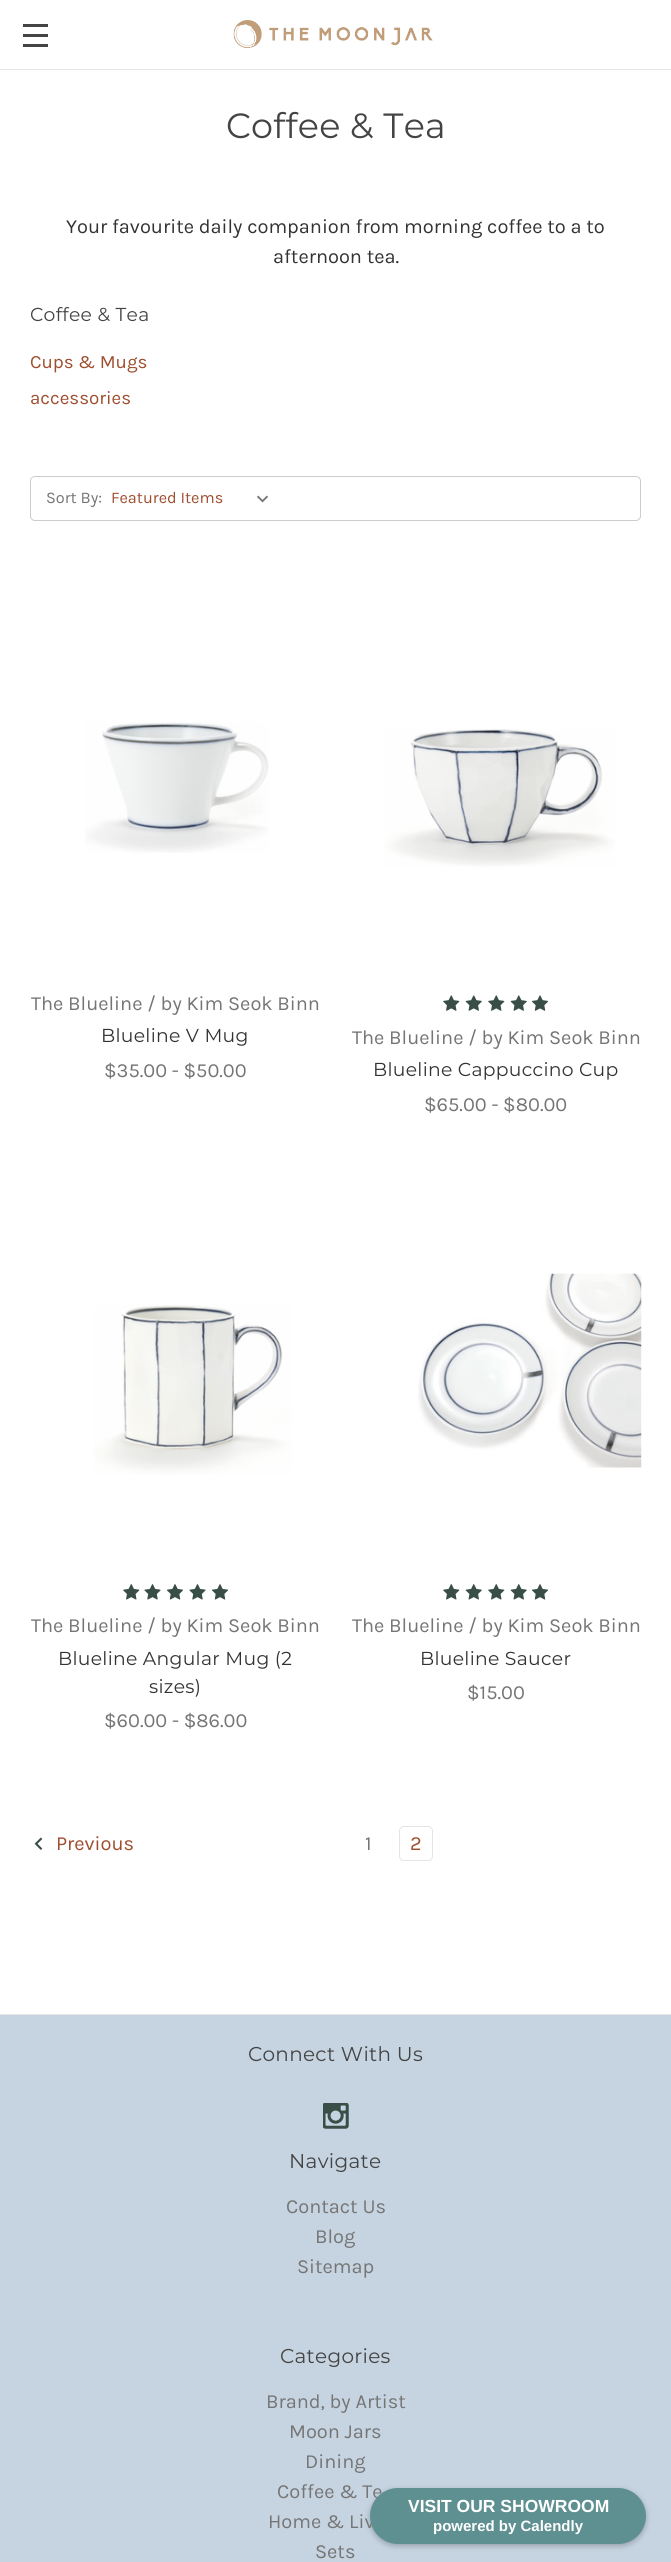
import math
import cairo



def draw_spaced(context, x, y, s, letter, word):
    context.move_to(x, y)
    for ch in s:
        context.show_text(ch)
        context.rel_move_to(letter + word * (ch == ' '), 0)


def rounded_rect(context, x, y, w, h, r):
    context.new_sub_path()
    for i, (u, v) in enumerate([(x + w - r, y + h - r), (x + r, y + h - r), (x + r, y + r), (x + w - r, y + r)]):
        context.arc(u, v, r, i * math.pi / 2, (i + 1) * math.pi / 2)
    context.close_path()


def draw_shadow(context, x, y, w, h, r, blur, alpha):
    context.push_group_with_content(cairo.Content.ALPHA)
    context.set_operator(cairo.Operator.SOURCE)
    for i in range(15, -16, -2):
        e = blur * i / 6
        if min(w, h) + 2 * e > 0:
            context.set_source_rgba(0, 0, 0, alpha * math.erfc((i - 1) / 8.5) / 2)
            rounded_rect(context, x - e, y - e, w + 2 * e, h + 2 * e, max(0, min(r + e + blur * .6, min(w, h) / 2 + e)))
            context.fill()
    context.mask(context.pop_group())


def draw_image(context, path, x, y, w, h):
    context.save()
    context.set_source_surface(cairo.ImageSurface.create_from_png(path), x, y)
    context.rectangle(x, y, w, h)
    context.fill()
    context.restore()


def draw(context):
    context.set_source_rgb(1, 1, 1)
    context.paint()
    context.set_source_rgb(229 / 255, 229 / 255, 229 / 255)
    context.rectangle(0, 69, 671, 1)
    context.fill()
    context.set_source_rgb(68 / 255, 68 / 255, 68 / 255)
    context.rectangle(23, 34, 25, 3)
    context.fill()
    context.rectangle(23, 24, 25, 3)
    context.fill()
    context.rectangle(23, 44, 25, 3)
    context.fill()
    draw_image(context, "images/1.png", 233, 20, 200, 28)
    rounded_rect(context, 30.5, 476.5, 610, 44, 4.5)
    context.set_source_rgb(204 / 255, 204 / 255, 204 / 255)
    context.set_line_width(1)
    context.stroke()
    draw_image(context, "images/2.png", 257, 495, 11, 8)
    draw_image(context, "images/3.png", 85, 722, 184, 131)
    draw_image(context, "images/4.png", 385, 729, 230, 138)
    draw_image(context, "images/5.png", 443, 995, 17, 16)
    draw_image(context, "images/6.png", 465, 995, 17, 16)
    draw_image(context, "images/5.png", 488, 995, 17, 16)
    draw_image(context, "images/6.png", 510, 995, 17, 16)
    draw_image(context, "images/7.png", 531, 995, 18, 16)
    draw_image(context, "images/8.png", 94, 1305, 198, 170)
    draw_image(context, "images/9.png", 123, 1584, 17, 16)
    draw_image(context, "images/10.png", 144, 1584, 17, 16)
    draw_image(context, "images/11.png", 166, 1584, 17, 16)
    draw_image(context, "images/10.png", 189, 1584, 17, 16)
    draw_image(context, "images/11.png", 211, 1584, 17, 16)
    draw_image(context, "images/12.png", 418, 1273, 224, 195)
    draw_image(context, "images/9.png", 443, 1584, 17, 16)
    draw_image(context, "images/13.png", 465, 1584, 17, 16)
    draw_image(context, "images/9.png", 488, 1584, 17, 16)
    draw_image(context, "images/13.png", 510, 1584, 17, 16)
    draw_image(context, "images/11.png", 531, 1584, 17, 16)
    draw_image(context, "images/14.png", 34, 1837, 9, 13)
    rounded_rect(context, 399.5, 1826.5, 33, 34, 4.5)
    context.set_source_rgb(229 / 255, 229 / 255, 229 / 255)
    context.stroke()
    context.set_source_rgb(198 / 255, 212 / 255, 225 / 255)
    context.rectangle(0, 2015, 671, 547)
    context.fill()
    context.set_source_rgb(229 / 255, 229 / 255, 229 / 255)
    context.rectangle(0, 2014, 671, 1)
    context.fill()
    draw_image(context, "images/15.png", 323, 2103, 26, 26)
    context.set_source_rgb(0, 0, 0)
    draw_shadow(context, 370, 2490, 276, 56, 28, 3, 0.25)
    context.select_font_face("Montserrat")
    context.set_font_size(35)
    context.set_source_rgb(68 / 255, 68 / 255, 68 / 255)
    draw_spaced(context, 226, 138, "Coffee & Tea", 0.3, 0)
    context.select_font_face("Karla")
    context.set_font_size(20)
    context.set_source_rgb(51 / 255, 51 / 255, 51 / 255)
    context.move_to(66, 233)
    context.show_text("Your favourite daily companion from morning coffee to a to")
    context.move_to(273, 263)
    context.show_text("afternoon tea.")
    context.select_font_face("Montserrat")
    context.set_font_size(18.75)
    context.set_source_rgb(68 / 255, 68 / 255, 68 / 255)
    draw_spaced(context, 30, 321, "Coffee & Tea", 0.3, 0)
    context.select_font_face("Karla")
    context.set_source_rgb(159 / 255, 77 / 255, 47 / 255)
    context.move_to(30, 368)
    context.show_text("Cups & Mugs")
    context.move_to(30, 404)
    context.show_text("accessories")
    context.set_font_size(16.25)
    context.set_source_rgb(117 / 255, 117 / 255, 117 / 255)
    context.move_to(46, 503)
    context.show_text("Sort By:")
    context.set_source_rgb(159 / 255, 77 / 255, 47 / 255)
    context.move_to(111, 503)
    context.show_text("Featured Items")
    context.set_font_size(20)
    context.set_source_rgb(117 / 255, 117 / 255, 117 / 255)
    context.move_to(31, 1010)
    context.show_text("The Blueline / by Kim Seok Binn")
    context.select_font_face("Montserrat")
    context.set_font_size(18.75)
    context.set_source_rgb(51 / 255, 51 / 255, 51 / 255)
    draw_spaced(context, 101, 1042, "Blueline V Mug", 0.3, 0)
    context.select_font_face("Karla")
    context.set_font_size(20)
    context.set_source_rgb(117 / 255, 117 / 255, 117 / 255)
    context.move_to(104, 1077)
    context.show_text("$35.00 - $50.00")
    context.move_to(352, 1044)
    context.show_text("The Blueline / by Kim Seok Binn")
    context.select_font_face("Montserrat")
    context.set_font_size(18.75)
    context.set_source_rgb(51 / 255, 51 / 255, 51 / 255)
    draw_spaced(context, 373, 1076, "Blueline Cappuccino Cup", 0.3, 0)
    context.select_font_face("Karla")
    context.set_font_size(20)
    context.set_source_rgb(117 / 255, 117 / 255, 117 / 255)
    context.move_to(424, 1111)
    context.show_text("$65.00 - $80.00")
    context.move_to(31, 1632)
    context.show_text("The Blueline / by Kim Seok Binn")
    context.select_font_face("Montserrat")
    context.set_font_size(18.75)
    context.set_source_rgb(51 / 255, 51 / 255, 51 / 255)
    draw_spaced(context, 58, 1665, "Blueline Angular Mug (2", 0.3, 0)
    draw_spaced(context, 149, 1693, "sizes)", 0.3, 0)
    context.select_font_face("Karla")
    context.set_font_size(20)
    context.set_source_rgb(117 / 255, 117 / 255, 117 / 255)
    context.move_to(104, 1727)
    context.show_text("$60.00 - $86.00")
    context.move_to(352, 1632)
    context.show_text("The Blueline / by Kim Seok Binn")
    context.select_font_face("Montserrat")
    context.set_font_size(18.75)
    context.set_source_rgb(51 / 255, 51 / 255, 51 / 255)
    draw_spaced(context, 420, 1665, "Blueline Saucer", 0.3, 0)
    context.select_font_face("Karla")
    context.set_font_size(20)
    context.set_source_rgb(117 / 255, 117 / 255, 117 / 255)
    context.move_to(467, 1699)
    context.show_text("$15.00")
    context.set_source_rgb(159 / 255, 77 / 255, 47 / 255)
    context.move_to(56, 1850)
    context.show_text("Previous")
    context.set_source_rgb(117 / 255, 117 / 255, 117 / 255)
    context.move_to(365, 1850)
    context.show_text("1")
    context.set_source_rgb(159 / 255, 77 / 255, 47 / 255)
    context.move_to(410, 1850)
    context.show_text("2")
    context.select_font_face("Montserrat")
    context.set_source_rgb(68 / 255, 68 / 255, 68 / 255)
    draw_spaced(context, 248, 2061, "Connect With Us", 0.3, 0)
    draw_spaced(context, 289, 2168, "Navigate", 0.3, 0)
    context.select_font_face("Karla")
    context.set_source_rgb(117 / 255, 117 / 255, 117 / 255)
    context.move_to(286, 2213)
    context.show_text("Contact Us")
    context.move_to(315, 2243)
    context.show_text("Blog")
    context.move_to(297, 2273)
    context.show_text("Sitemap")
    context.select_font_face("Montserrat")
    context.set_source_rgb(68 / 255, 68 / 255, 68 / 255)
    draw_spaced(context, 280, 2363, "Categories", 0.3, 0)
    context.select_font_face("Karla")
    context.set_source_rgb(117 / 255, 117 / 255, 117 / 255)
    context.move_to(266, 2408)
    context.show_text("Brand, by Artist")
    context.move_to(289, 2438)
    context.show_text("Moon Jars")
    context.move_to(305, 2468)
    context.show_text("Dining")
    context.move_to(277, 2498)
    context.show_text("Coffee & Te")
    context.move_to(268, 2528)
    context.show_text("Home & Liv")
    context.move_to(315, 2558)
    context.show_text("Sets")
    context.set_source_rgb(94 / 255, 144 / 255, 145 / 255)
    rounded_rect(context, 370, 2488, 276, 56, 28)
    context.fill()
    context.select_font_face("Liberation Sans", cairo.FontSlant.NORMAL, cairo.FontWeight.BOLD)
    context.set_font_size(17.5)
    context.set_source_rgb(1, 1, 1)
    context.move_to(408, 2512)
    context.show_text("VISIT OUR SHOWROOM")
    context.set_font_size(15)
    context.move_to(433, 2531)
    context.show_text("powered by Calendly")


surface = cairo.ImageSurface(cairo.Format.RGB24, 671, 2562)
context = cairo.Context(surface)
options = cairo.FontOptions()
options.set_hint_metrics(cairo.HintMetrics.OFF)
options.set_hint_style(cairo.HintStyle.NONE)
context.set_font_options(options)
context.set_miter_limit(4)
draw(context)
surface.write_to_png("out.png")
